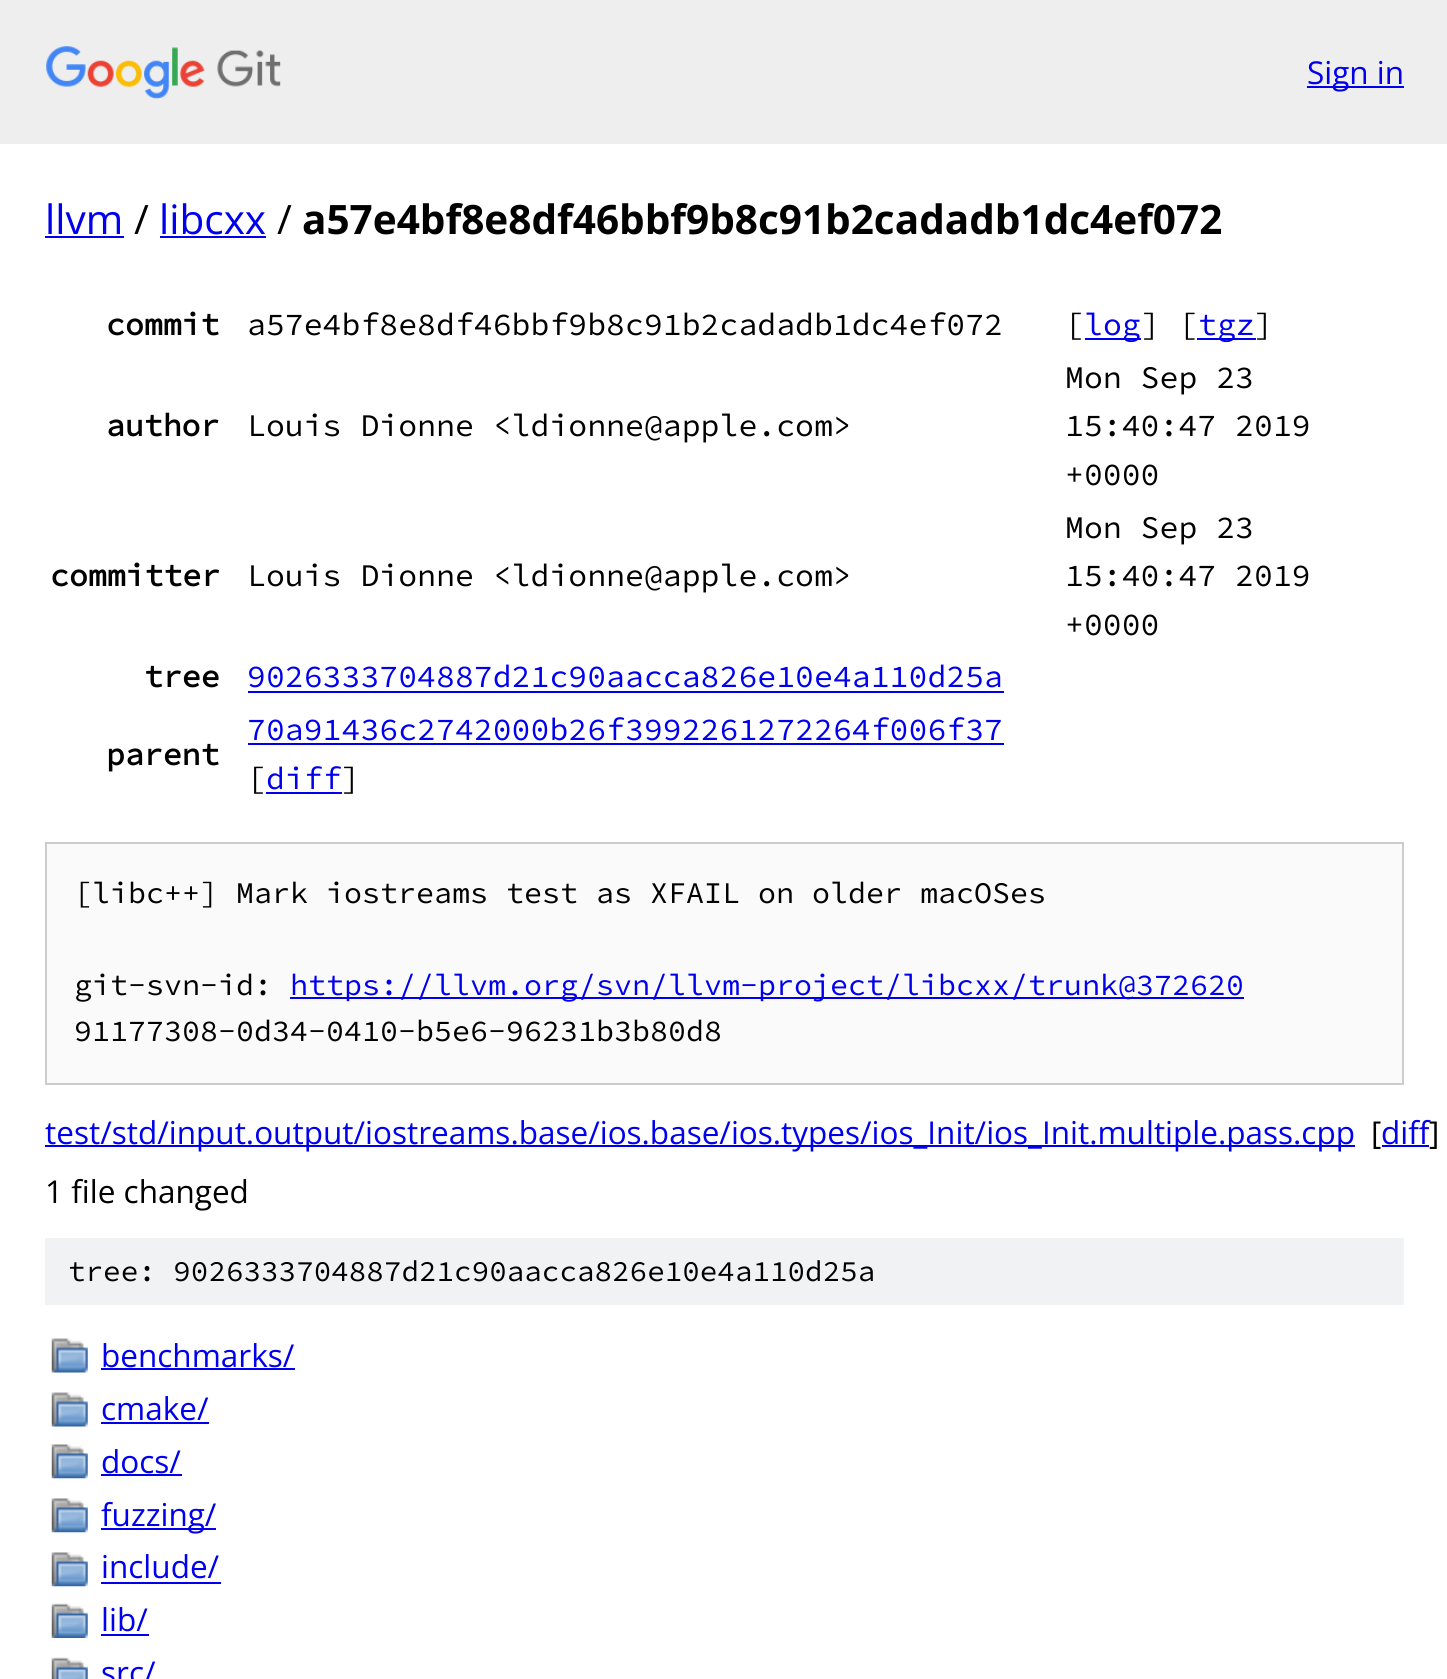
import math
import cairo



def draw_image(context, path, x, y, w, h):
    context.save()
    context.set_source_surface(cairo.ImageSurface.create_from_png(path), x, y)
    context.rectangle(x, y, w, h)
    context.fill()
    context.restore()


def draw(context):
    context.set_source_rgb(1, 1, 1)
    context.paint()
    context.set_source_rgb(238 / 255, 238 / 255, 238 / 255)
    context.rectangle(0, 0, 1447, 144)
    context.fill()
    draw_image(context, "images/1.png", 46, 46, 235, 53)
    context.set_source_rgb(0, 0, 238 / 255)
    context.rectangle(1307, 86, 97, 2)
    context.fill()
    context.rectangle(45, 236, 79, 2)
    context.fill()
    context.rectangle(160, 236, 106, 2)
    context.fill()
    context.rectangle(1085, 338, 56, 2)
    context.fill()
    context.rectangle(1197, 338, 59, 2)
    context.fill()
    context.rectangle(248, 691, 756, 2)
    context.fill()
    context.rectangle(248, 743, 756, 2)
    context.fill()
    context.rectangle(266, 792, 76, 2)
    context.fill()
    context.set_source_rgb(250 / 255, 250 / 255, 250 / 255)
    context.rectangle(46, 843, 1357, 241)
    context.fill_preserve()
    context.set_source_rgb(204 / 255, 204 / 255, 204 / 255)
    context.stroke()
    context.set_source_rgb(0, 0, 238 / 255)
    context.rectangle(290, 997, 954, 2)
    context.fill()
    context.rectangle(45, 1145, 1310, 2)
    context.fill()
    context.rectangle(1382, 1145, 47, 2)
    context.fill()
    context.set_source_rgb(241 / 255, 242 / 255, 243 / 255)
    context.rectangle(45, 1238, 1359, 67)
    context.fill()
    draw_image(context, "images/2.png", 51, 1338, 37, 35)
    context.set_source_rgb(0, 0, 238 / 255)
    context.rectangle(101, 1368, 194, 2)
    context.fill()
    draw_image(context, "images/2.png", 51, 1392, 37, 35)
    context.rectangle(101, 1422, 108, 2)
    context.fill()
    draw_image(context, "images/3.png", 51, 1444, 37, 35)
    context.rectangle(101, 1474, 81, 2)
    context.fill()
    draw_image(context, "images/3.png", 51, 1498, 37, 35)
    context.rectangle(101, 1528, 115, 2)
    context.fill()
    draw_image(context, "images/4.png", 51, 1552, 37, 35)
    context.rectangle(101, 1582, 120, 2)
    context.fill()
    draw_image(context, "images/5.png", 51, 1603, 37, 35)
    context.rectangle(101, 1634, 48, 2)
    context.fill()
    draw_image(context, "images/6.png", 51, 1657, 37, 22)
    context.select_font_face("Open Sans")
    context.set_font_size(31.5)
    context.move_to(1307, 84)
    context.show_text("Sign in")
    context.set_font_size(40.5)
    context.move_to(45, 234)
    context.show_text("llvm")
    context.set_source_rgb(0, 0, 0)
    context.move_to(134, 234)
    context.show_text("/")
    context.set_source_rgb(0, 0, 238 / 255)
    context.move_to(159, 234)
    context.show_text("libcxx")
    context.set_source_rgb(0, 0, 0)
    context.move_to(277, 234)
    context.show_text("/")
    context.select_font_face("Open Sans", cairo.FontSlant.NORMAL, cairo.FontWeight.BOLD)
    context.move_to(302, 234)
    context.show_text("a57e4bf8e8df46bbf9b8c91b2cadadb1dc4ef072")
    context.select_font_face("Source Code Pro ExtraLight", cairo.FontSlant.NORMAL, cairo.FontWeight.BOLD)
    context.set_font_size(31.5)
    context.move_to(106, 335)
    context.show_text("commit")
    context.select_font_face("Source Code Pro ExtraLight ExtraLight")
    context.move_to(247, 335)
    context.show_text("a57e4bf8e8df46bbf9b8c91b2cadadb1dc4ef072")
    context.move_to(1065, 335)
    context.show_text("[")
    context.set_source_rgb(0, 0, 238 / 255)
    context.move_to(1084, 335)
    context.show_text("log")
    context.set_source_rgb(0, 0, 0)
    context.move_to(1141, 335)
    context.show_text("] [")
    context.set_source_rgb(0, 0, 238 / 255)
    context.move_to(1198, 335)
    context.show_text("tgz")
    context.set_source_rgb(0, 0, 0)
    context.move_to(1254, 335)
    context.show_text("]")
    context.select_font_face("Source Code Pro ExtraLight", cairo.FontSlant.NORMAL, cairo.FontWeight.BOLD)
    context.move_to(106, 436)
    context.show_text("author")
    context.select_font_face("Source Code Pro ExtraLight ExtraLight")
    context.move_to(247, 436)
    context.show_text("Louis Dionne <ldionne@apple.com>")
    context.move_to(1065, 388)
    context.show_text("Mon Sep 23")
    context.move_to(1065, 436)
    context.show_text("15:40:47 2019")
    context.move_to(1065, 485)
    context.show_text("+0000")
    context.select_font_face("Source Code Pro ExtraLight", cairo.FontSlant.NORMAL, cairo.FontWeight.BOLD)
    context.move_to(50, 586)
    context.show_text("committer")
    context.select_font_face("Source Code Pro ExtraLight ExtraLight")
    context.move_to(247, 586)
    context.show_text("Louis Dionne <ldionne@apple.com>")
    context.move_to(1065, 538)
    context.show_text("Mon Sep 23")
    context.move_to(1065, 586)
    context.show_text("15:40:47 2019")
    context.move_to(1065, 635)
    context.show_text("+0000")
    context.select_font_face("Source Code Pro ExtraLight", cairo.FontSlant.NORMAL, cairo.FontWeight.BOLD)
    context.move_to(144, 687)
    context.show_text("tree")
    context.select_font_face("Source Code Pro ExtraLight ExtraLight")
    context.set_source_rgb(0, 0, 238 / 255)
    context.move_to(247, 687)
    context.show_text("9026333704887d21c90aacca826e10e4a110d25a")
    context.select_font_face("Source Code Pro ExtraLight", cairo.FontSlant.NORMAL, cairo.FontWeight.BOLD)
    context.set_source_rgb(0, 0, 0)
    context.move_to(106, 765)
    context.show_text("parent")
    context.select_font_face("Source Code Pro ExtraLight ExtraLight")
    context.set_source_rgb(0, 0, 238 / 255)
    context.move_to(247, 740)
    context.show_text("70a91436c2742000b26f3992261272264f006f37")
    context.set_source_rgb(0, 0, 0)
    context.move_to(247, 789)
    context.show_text("[")
    context.set_source_rgb(0, 0, 238 / 255)
    context.move_to(266, 789)
    context.show_text("diff")
    context.set_source_rgb(0, 0, 0)
    context.move_to(341, 789)
    context.show_text("]")
    context.set_font_size(30)
    context.move_to(74, 903)
    context.show_text("[libc++] Mark iostreams test as XFAIL on older macOSes")
    context.move_to(74, 995)
    context.show_text("git-svn-id:")
    context.set_source_rgb(0, 0, 238 / 255)
    context.move_to(290, 995)
    context.show_text("https://llvm.org/svn/llvm-project/libcxx/trunk@372620")
    context.set_source_rgb(0, 0, 0)
    context.move_to(74, 1041)
    context.show_text("91177308-0d34-0410-b5e6-96231b3b80d8")
    context.select_font_face("Open Sans")
    context.set_font_size(31.5)
    context.set_source_rgb(0, 0, 238 / 255)
    context.move_to(45, 1144)
    context.show_text("test/std/input.output/iostreams.base/ios.base/ios.types/ios_Init/ios_Init.multiple.pass.cpp")
    context.set_source_rgb(0, 0, 0)
    context.move_to(1371, 1144)
    context.show_text("[")
    context.set_source_rgb(0, 0, 238 / 255)
    context.move_to(1381, 1144)
    context.show_text("diff")
    context.set_source_rgb(0, 0, 0)
    context.move_to(1429, 1144)
    context.show_text("]")
    context.move_to(45, 1203)
    context.show_text("1 file changed")
    context.select_font_face("Source Code Pro ExtraLight ExtraLight")
    context.set_font_size(29.25)
    context.move_to(68, 1281)
    context.show_text("tree: 9026333704887d21c90aacca826e10e4a110d25a")
    context.select_font_face("Open Sans")
    context.set_font_size(31.5)
    context.set_source_rgb(0, 0, 238 / 255)
    context.move_to(101, 1367)
    context.show_text("benchmarks/")
    context.move_to(101, 1420)
    context.show_text("cmake/")
    context.move_to(101, 1473)
    context.show_text("docs/")
    context.move_to(101, 1526)
    context.show_text("fuzzing/")
    context.move_to(101, 1578)
    context.show_text("include/")
    context.move_to(101, 1631)
    context.show_text("lib/")
    context.move_to(101, 1684)
    context.show_text("src/")


surface = cairo.ImageSurface(cairo.Format.RGB24, 1447, 1679)
context = cairo.Context(surface)
options = cairo.FontOptions()
options.set_hint_metrics(cairo.HintMetrics.OFF)
options.set_hint_style(cairo.HintStyle.NONE)
context.set_font_options(options)
context.set_miter_limit(4)
draw(context)
surface.write_to_png("out.png")
